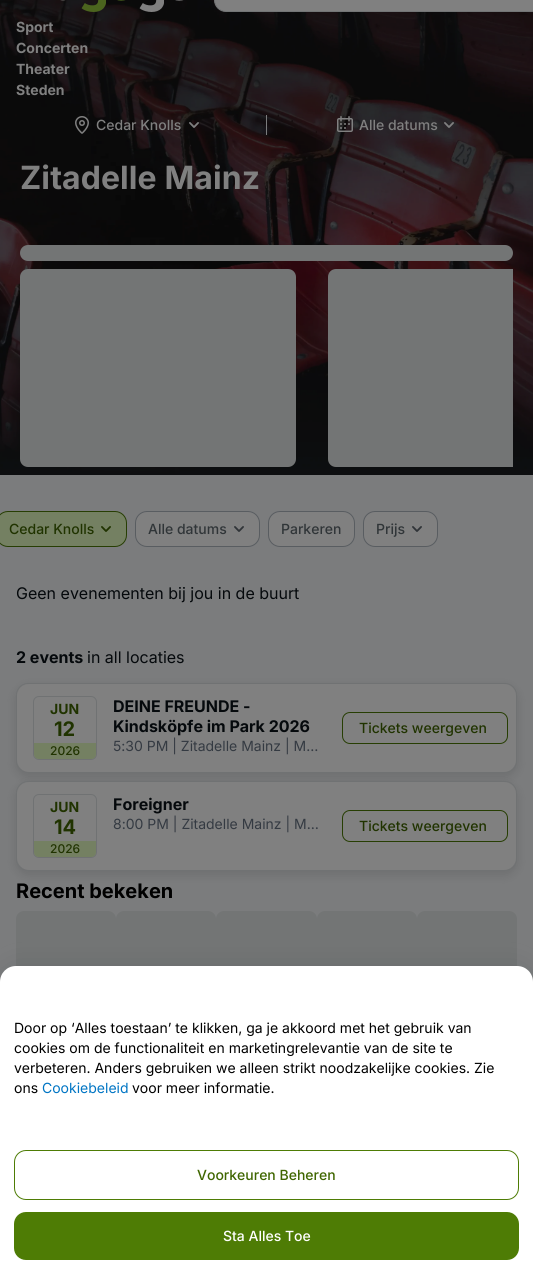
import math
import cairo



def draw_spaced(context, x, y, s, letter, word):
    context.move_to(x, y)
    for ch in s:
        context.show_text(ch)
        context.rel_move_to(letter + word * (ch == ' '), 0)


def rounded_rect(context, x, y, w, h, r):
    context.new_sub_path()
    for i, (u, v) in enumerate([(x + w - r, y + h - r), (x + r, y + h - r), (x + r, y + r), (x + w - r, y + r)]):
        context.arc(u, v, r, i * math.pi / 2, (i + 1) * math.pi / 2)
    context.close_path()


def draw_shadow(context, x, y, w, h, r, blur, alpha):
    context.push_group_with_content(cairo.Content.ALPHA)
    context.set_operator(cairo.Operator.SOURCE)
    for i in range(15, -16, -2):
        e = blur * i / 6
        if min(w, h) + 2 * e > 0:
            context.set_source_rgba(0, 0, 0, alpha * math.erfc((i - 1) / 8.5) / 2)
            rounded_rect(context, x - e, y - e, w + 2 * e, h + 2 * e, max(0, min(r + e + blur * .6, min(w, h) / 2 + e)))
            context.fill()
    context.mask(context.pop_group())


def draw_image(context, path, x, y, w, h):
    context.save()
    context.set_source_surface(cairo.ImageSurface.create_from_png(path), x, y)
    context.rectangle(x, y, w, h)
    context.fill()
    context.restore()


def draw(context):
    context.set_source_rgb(1, 1, 1)
    context.paint()
    draw_image(context, "images/1.png", 0, 0, 533, 475)
    draw_image(context, "images/2.png", 60, 0, 6, 1)
    draw_image(context, "images/3.png", 81, 0, 45, 12)
    draw_image(context, "images/4.png", 139, 0, 45, 12)
    context.set_source_rgb(128 / 255, 128 / 255, 128 / 255)
    rounded_rect(context, 214.5, -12.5, 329, 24, 11.5)
    context.fill_preserve()
    context.set_source_rgb(115 / 255, 117 / 255, 118 / 255)
    context.set_line_width(1)
    context.stroke()
    draw_image(context, "images/5.png", 75, 116, 14, 18)
    draw_image(context, "images/6.png", 189, 122, 10, 6)
    context.set_source_rgb(123 / 255, 124 / 255, 125 / 255)
    context.rectangle(266, 115, 1, 20)
    context.fill()
    draw_image(context, "images/7.png", 337, 116, 16, 16)
    draw_image(context, "images/8.png", 444, 122, 10, 6)
    context.set_source_rgb(115 / 255, 117 / 255, 117 / 255)
    rounded_rect(context, 20, 245, 493, 16, 8)
    context.fill()
    rounded_rect(context, 20, 269, 276, 198, 8)
    context.fill()
    context.new_path()
    context.move_to(336, 269)
    context.line_to(513, 269)
    context.line_to(513, 467)
    context.line_to(336, 467)
    context.curve_to(331.5, 467, 328, 463.5, 328, 459)
    context.line_to(328, 277)
    context.curve_to(328, 272.5, 331.5, 269, 336, 269)
    context.close_path()
    context.fill()
    context.set_source_rgb(123 / 255, 124 / 255, 125 / 255)
    context.rectangle(0, 475, 533, 507)
    context.fill()
    context.set_source_rgb(116 / 255, 128 / 255, 98 / 255)
    rounded_rect(context, -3.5, 511.5, 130, 35, 11.5)
    context.fill_preserve()
    context.set_source_rgb(39 / 255, 62 / 255, 3 / 255)
    context.stroke()
    draw_image(context, "images/9.png", 101, 526, 10, 6)
    context.set_source_rgb(128 / 255, 128 / 255, 128 / 255)
    rounded_rect(context, 135.5, 511.5, 124, 35, 11.5)
    context.fill_preserve()
    context.set_source_rgb(89 / 255, 93 / 255, 97 / 255)
    context.stroke()
    draw_image(context, "images/10.png", 234, 526, 10, 6)
    context.set_source_rgb(128 / 255, 128 / 255, 128 / 255)
    rounded_rect(context, 268.5, 511.5, 86, 35, 11.5)
    context.fill_preserve()
    context.set_source_rgb(89 / 255, 93 / 255, 97 / 255)
    context.stroke()
    context.set_source_rgb(128 / 255, 128 / 255, 128 / 255)
    rounded_rect(context, 363.5, 511.5, 74, 35, 11.5)
    context.fill_preserve()
    context.set_source_rgb(89 / 255, 93 / 255, 97 / 255)
    context.stroke()
    draw_image(context, "images/10.png", 412, 526, 10, 6)
    context.set_source_rgb(0, 0, 0)
    draw_shadow(context, 15, 686, 503, 92, 13, 5, 0.1)
    rounded_rect(context, 16.5, 683.5, 500, 89, 11.5)
    context.set_source_rgb(112 / 255, 114 / 255, 115 / 255)
    context.stroke()
    context.set_source_rgb(128 / 255, 128 / 255, 128 / 255)
    rounded_rect(context, 17, 684, 499, 88, 12)
    context.fill()
    rounded_rect(context, 33.5, 696.5, 63, 63, 5.5)
    context.set_source_rgb(112 / 255, 114 / 255, 115 / 255)
    context.stroke()
    context.set_source_rgb(116 / 255, 128 / 255, 98 / 255)
    context.new_path()
    context.move_to(34, 743)
    context.line_to(96, 743)
    context.line_to(96, 754)
    context.curve_to(96, 757, 94, 759, 91, 759)
    context.line_to(39, 759)
    context.curve_to(36, 759, 34, 757, 34, 754)
    context.close_path()
    context.fill()
    rounded_rect(context, 342.5, 712.5, 165, 31, 7.5)
    context.set_source_rgb(39 / 255, 62 / 255, 3 / 255)
    context.stroke()
    context.set_source_rgb(0, 0, 0)
    draw_shadow(context, 15, 784, 503, 92, 13, 5, 0.1)
    rounded_rect(context, 16.5, 781.5, 500, 89, 11.5)
    context.set_source_rgb(112 / 255, 114 / 255, 115 / 255)
    context.stroke()
    context.set_source_rgb(128 / 255, 128 / 255, 128 / 255)
    rounded_rect(context, 17, 782, 499, 88, 12)
    context.fill()
    rounded_rect(context, 33.5, 794.5, 63, 63, 5.5)
    context.set_source_rgb(112 / 255, 114 / 255, 115 / 255)
    context.stroke()
    context.set_source_rgb(116 / 255, 128 / 255, 98 / 255)
    context.new_path()
    context.move_to(34, 841)
    context.line_to(96, 841)
    context.line_to(96, 852)
    context.curve_to(96, 855, 94, 857, 91, 857)
    context.line_to(39, 857)
    context.curve_to(36, 857, 34, 855, 34, 852)
    context.close_path()
    context.fill()
    rounded_rect(context, 342.5, 810.5, 165, 31, 7.5)
    context.set_source_rgb(39 / 255, 62 / 255, 3 / 255)
    context.stroke()
    context.set_source_rgb(115 / 255, 117 / 255, 117 / 255)
    rounded_rect(context, 16, 911, 100, 201, 8)
    context.fill()
    rounded_rect(context, 116, 911, 100, 201, 8)
    context.fill()
    rounded_rect(context, 216, 911, 101, 201, 8)
    context.fill()
    rounded_rect(context, 317, 911, 100, 201, 8)
    context.fill()
    rounded_rect(context, 417, 911, 100, 201, 8)
    context.fill()
    context.set_source_rgb(47 / 255, 52 / 255, 59 / 255)
    draw_shadow(context, 0, 966, 533, 310, 16, 16, 0.14)
    context.set_source_rgb(1, 1, 1)
    context.new_path()
    context.move_to(16, 966)
    context.line_to(517, 966)
    context.curve_to(526, 966, 533, 973, 533, 982)
    context.line_to(533, 1276)
    context.line_to(0, 1276)
    context.line_to(0, 982)
    context.curve_to(0, 973, 7, 966, 16, 966)
    context.close_path()
    context.fill()
    rounded_rect(context, 14.5, 1150.5, 504, 49, 11.5)
    context.set_source_rgb(78 / 255, 124 / 255, 5 / 255)
    context.stroke()
    rounded_rect(context, 14, 1212, 505, 48, 12)
    context.fill()
    context.select_font_face("Inter", cairo.FontSlant.NORMAL, cairo.FontWeight.BOLD)
    context.set_font_size(14)
    context.set_source_rgb(128 / 255, 128 / 255, 128 / 255)
    context.move_to(16, 32)
    context.show_text("Sport")
    context.move_to(16, 53)
    context.show_text("Concerten")
    context.move_to(16, 74)
    context.show_text("Theater")
    context.move_to(16, 95)
    context.show_text("Steden")
    context.select_font_face("Inter Medium")
    context.move_to(96, 130)
    context.show_text("Cedar Knolls")
    context.move_to(359, 130)
    context.show_text("Alle datums")
    context.select_font_face("Inter", cairo.FontSlant.NORMAL, cairo.FontWeight.BOLD)
    context.set_font_size(32)
    draw_spaced(context, 20, 189, "Zitadelle Mainz", 0.1, 0)
    context.select_font_face("Inter Medium")
    context.set_font_size(14)
    context.set_source_rgb(32 / 255, 51 / 255, 0)
    context.move_to(9, 534)
    context.show_text("Cedar Knolls")
    context.set_source_rgb(48 / 255, 53 / 255, 56 / 255)
    context.move_to(148, 534)
    context.show_text("Alle datums")
    context.move_to(281, 534)
    context.show_text("Parkeren")
    context.move_to(376, 534)
    context.show_text("Prijs")
    context.select_font_face("Inter")
    context.set_font_size(16)
    context.set_source_rgb(5 / 255, 9 / 255, 12 / 255)
    context.move_to(16, 599)
    context.show_text("Geen evenementen bij jou in de buurt")
    context.select_font_face("Inter", cairo.FontSlant.NORMAL, cairo.FontWeight.BOLD)
    context.move_to(16, 663)
    context.show_text("2 events")
    context.select_font_face("Inter")
    context.move_to(87, 663)
    context.show_text("in all locaties")
    context.select_font_face("Inter", cairo.FontSlant.NORMAL, cairo.FontWeight.BOLD)
    context.set_font_size(14)
    context.set_source_rgb(32 / 255, 51 / 255, 0)
    context.move_to(50, 714)
    context.show_text("JUN")
    context.set_font_size(20)
    context.move_to(54, 736)
    context.show_text("12")
    context.select_font_face("Inter Medium")
    context.set_font_size(12)
    context.move_to(50, 755)
    context.show_text("2026")
    context.select_font_face("Inter", cairo.FontSlant.NORMAL, cairo.FontWeight.BOLD)
    context.set_font_size(16)
    context.set_source_rgb(5 / 255, 9 / 255, 12 / 255)
    context.move_to(113, 712)
    context.show_text("DEINE FREUNDE -")
    context.move_to(113, 732)
    context.show_text("Kindsköpfe im Park 2026")
    context.select_font_face("Inter")
    context.set_font_size(14)
    context.set_source_rgb(52 / 255, 58 / 255, 66 / 255)
    context.move_to(113, 751)
    context.show_text("5:30 PM | Zitadelle Mainz | M…")
    context.select_font_face("Inter Medium")
    context.set_source_rgb(32 / 255, 51 / 255, 0)
    context.move_to(359, 733)
    context.show_text("Tickets weergeven")
    context.select_font_face("Inter", cairo.FontSlant.NORMAL, cairo.FontWeight.BOLD)
    context.move_to(50, 812)
    context.show_text("JUN")
    context.set_font_size(20)
    context.move_to(54, 834)
    context.show_text("14")
    context.select_font_face("Inter Medium")
    context.set_font_size(12)
    context.move_to(50, 853)
    context.show_text("2026")
    context.select_font_face("Inter", cairo.FontSlant.NORMAL, cairo.FontWeight.BOLD)
    context.set_font_size(16)
    context.set_source_rgb(5 / 255, 9 / 255, 12 / 255)
    context.move_to(113, 810)
    context.show_text("Foreigner")
    context.select_font_face("Inter")
    context.set_font_size(14)
    context.set_source_rgb(52 / 255, 58 / 255, 66 / 255)
    context.move_to(113, 829)
    context.show_text("8:00 PM | Zitadelle Mainz | M…")
    context.select_font_face("Inter Medium")
    context.set_source_rgb(32 / 255, 51 / 255, 0)
    context.move_to(359, 831)
    context.show_text("Tickets weergeven")
    context.select_font_face("Inter", cairo.FontSlant.NORMAL, cairo.FontWeight.BOLD)
    context.set_font_size(20)
    context.set_source_rgb(0, 0, 0)
    context.move_to(16, 898)
    context.show_text("Recent bekeken")
    context.select_font_face("Inter")
    context.set_font_size(14)
    context.move_to(14, 1033)
    context.show_text("Door op ‘Alles toestaan’ te klikken, ga je akkoord met het gebruik van")
    context.move_to(14, 1053)
    context.show_text("cookies om de functionaliteit en marketingrelevantie van de site te")
    context.move_to(14, 1073)
    context.show_text("verbeteren. Anders gebruiken we alleen strikt noodzakelijke cookies. Zie")
    context.move_to(14, 1093)
    context.show_text("ons")
    context.set_source_rgb(0, 117 / 255, 196 / 255)
    context.move_to(42, 1093)
    context.show_text("Cookiebeleid")
    context.set_source_rgb(0, 0, 0)
    context.move_to(132, 1093)
    context.show_text("voor meer informatie.")
    context.select_font_face("Inter Medium")
    context.set_source_rgb(63 / 255, 102 / 255, 0)
    context.move_to(197, 1180)
    context.show_text("Voorkeuren Beheren")
    context.set_source_rgb(1, 1, 1)
    context.move_to(223, 1241)
    context.show_text("Sta Alles Toe")


surface = cairo.ImageSurface(cairo.Format.RGB24, 533, 1276)
context = cairo.Context(surface)
options = cairo.FontOptions()
options.set_hint_metrics(cairo.HintMetrics.OFF)
options.set_hint_style(cairo.HintStyle.NONE)
context.set_font_options(options)
context.set_miter_limit(4)
draw(context)
surface.write_to_png("out.png")
